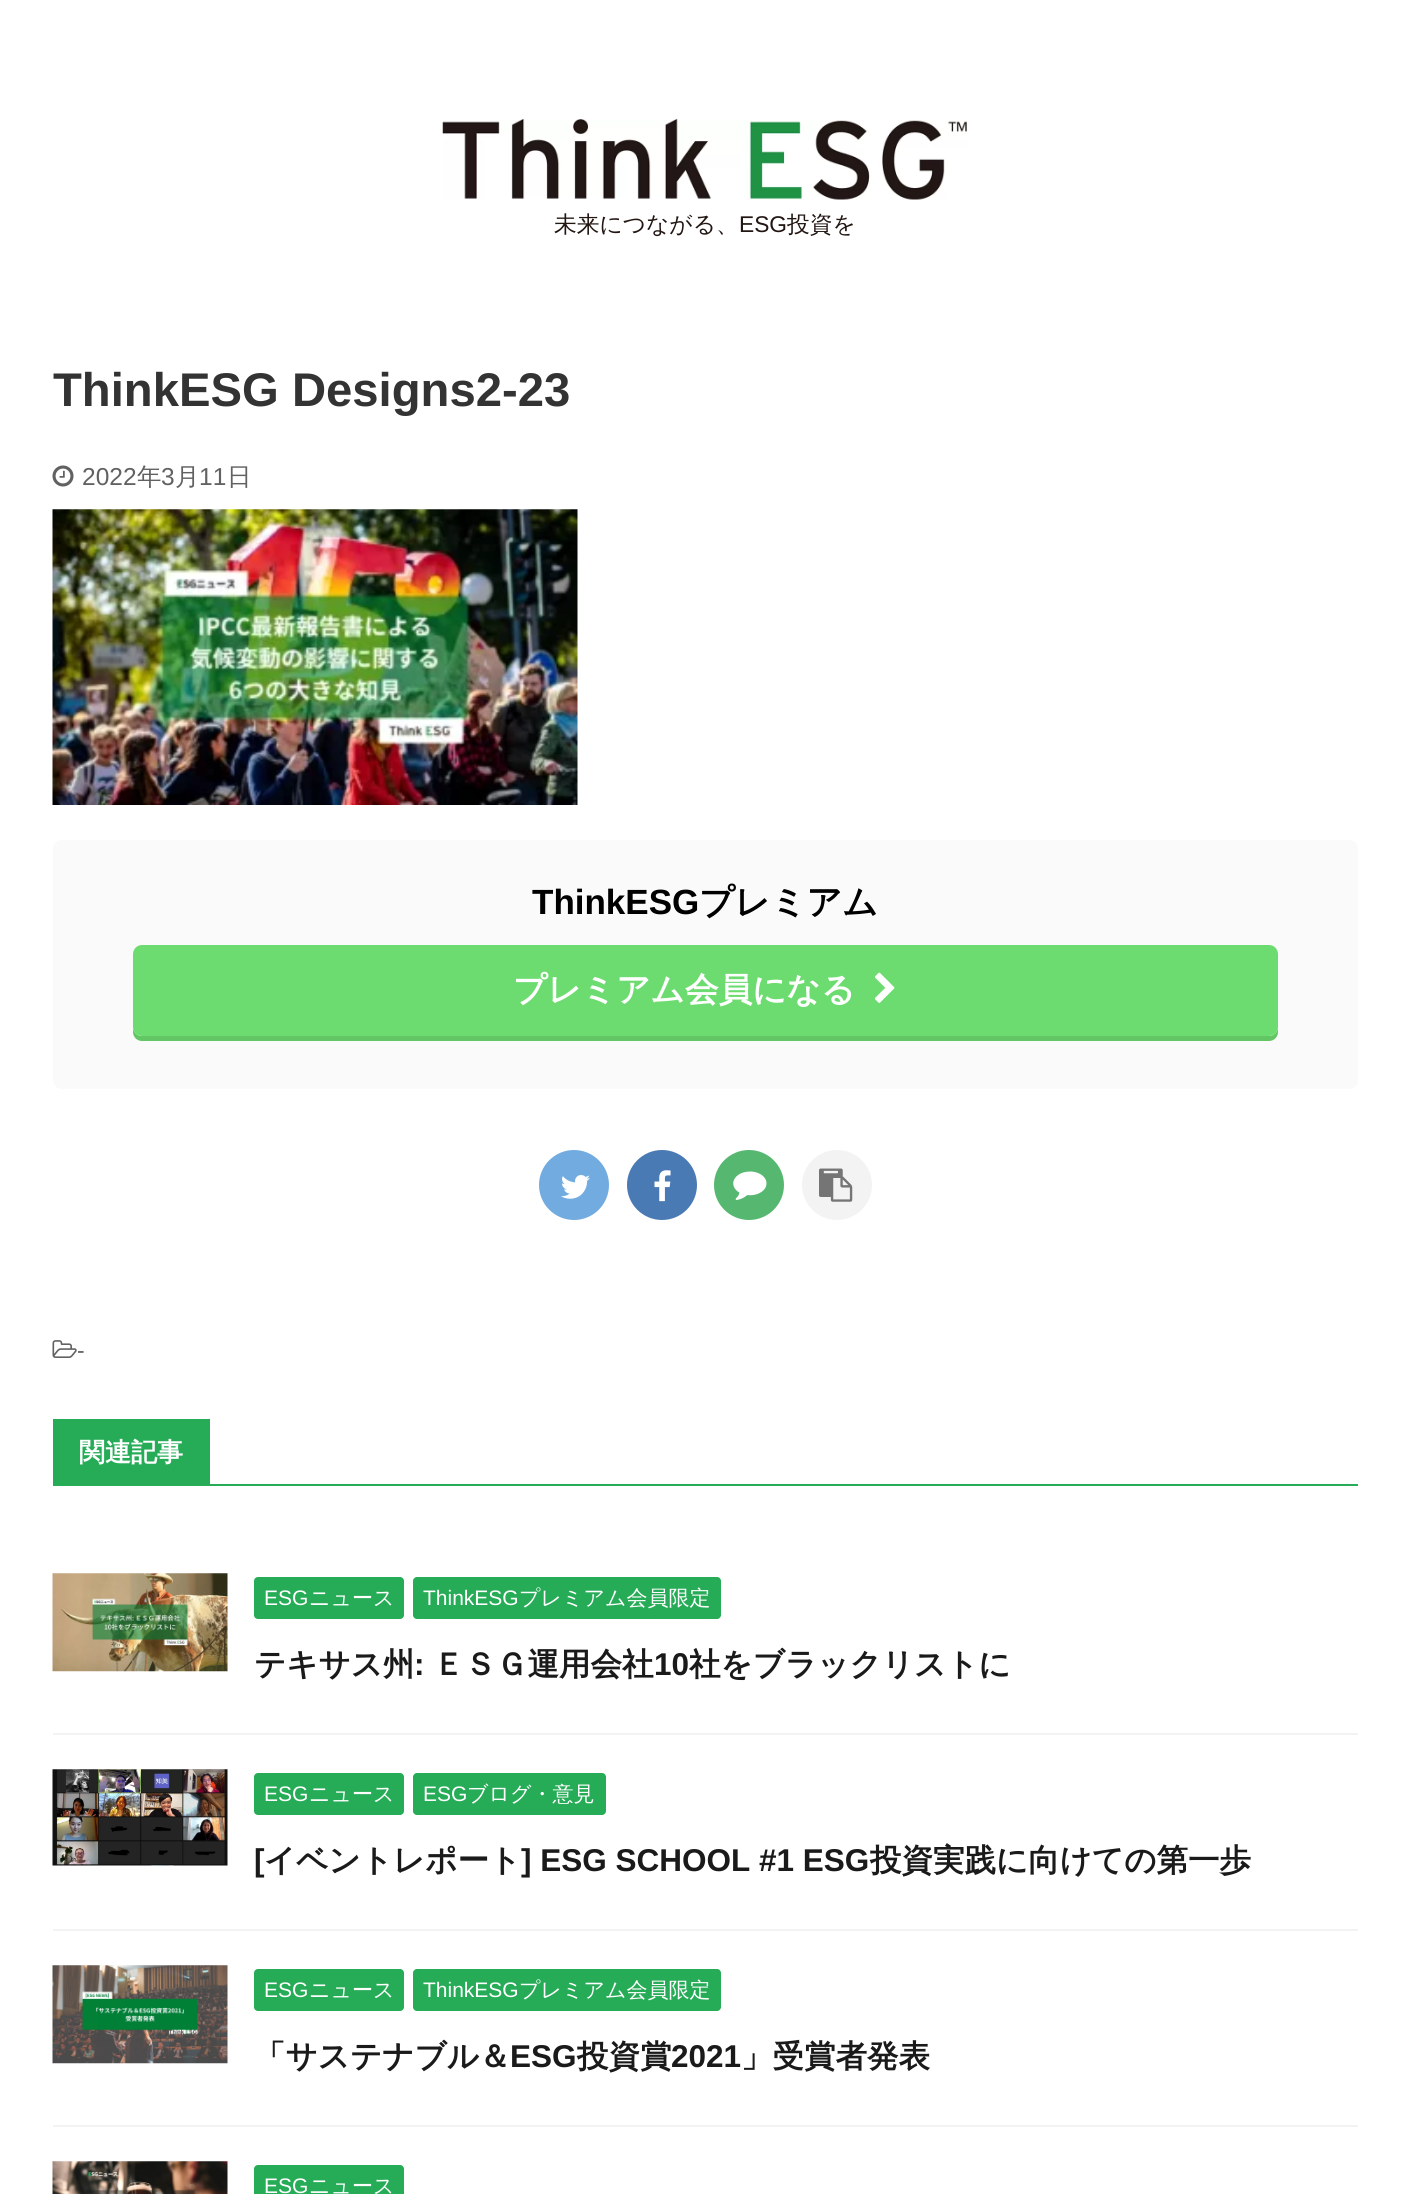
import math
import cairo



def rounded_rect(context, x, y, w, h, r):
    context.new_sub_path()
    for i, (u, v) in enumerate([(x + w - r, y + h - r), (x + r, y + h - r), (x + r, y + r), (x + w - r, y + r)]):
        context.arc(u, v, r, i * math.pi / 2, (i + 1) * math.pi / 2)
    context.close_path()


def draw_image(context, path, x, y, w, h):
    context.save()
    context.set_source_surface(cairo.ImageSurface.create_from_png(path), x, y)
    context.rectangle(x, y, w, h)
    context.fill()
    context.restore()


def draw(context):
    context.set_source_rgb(1, 1, 1)
    context.paint()
    draw_image(context, "images/1.png", 442, 119, 526, 81)
    draw_image(context, "images/2.png", 52, 465, 22, 22)
    draw_image(context, "images/3.png", 52, 509, 526, 296)
    context.set_source_rgb(250 / 255, 250 / 255, 250 / 255)
    rounded_rect(context, 53, 840, 1305, 249, 9)
    context.fill()
    context.set_source_rgb(98 / 255, 198 / 255, 100 / 255)
    context.new_path()
    context.move_to(133, 1027)
    context.line_to(133, 1032)
    context.curve_to(133, 1037, 137, 1041, 142, 1041)
    context.line_to(1269, 1041)
    context.curve_to(1274, 1041, 1278, 1037, 1278, 1032)
    context.line_to(1278, 959)
    context.line_to(1278, 956)
    context.line_to(1278, 1027)
    context.curve_to(1278, 1032, 1274, 1036, 1269, 1036)
    context.line_to(142, 1036)
    context.curve_to(137, 1036, 133, 1032, 133, 1027)
    context.close_path()
    context.fill()
    context.set_source_rgb(109 / 255, 220 / 255, 112 / 255)
    rounded_rect(context, 134, 946, 1143, 89, 8)
    context.fill_preserve()
    context.stroke()
    draw_image(context, "images/4.png", 875, 972, 20, 31)
    context.set_source_rgb(113 / 255, 171 / 255, 223 / 255)
    context.arc(574, 1185, 35, 0, 2 * math.pi)
    context.fill()
    draw_image(context, "images/5.png", 561, 1175, 29, 24)
    context.set_source_rgb(74 / 255, 122 / 255, 180 / 255)
    context.arc(662, 1185, 35, 0, 2 * math.pi)
    context.fill()
    draw_image(context, "images/6.png", 654, 1170, 17, 32)
    context.set_source_rgb(86 / 255, 184 / 255, 112 / 255)
    context.arc(749, 1185, 35, 0, 2 * math.pi)
    context.fill()
    draw_image(context, "images/7.png", 733, 1171, 34, 29)
    context.set_source_rgb(243 / 255, 243 / 255, 243 / 255)
    context.arc(837, 1185, 35, 0, 2 * math.pi)
    context.fill()
    draw_image(context, "images/8.png", 819, 1168, 34, 34)
    draw_image(context, "images/9.png", 52, 1340, 25, 18)
    context.set_source_rgb(38 / 255, 172 / 255, 87 / 255)
    context.rectangle(53, 1484, 1305, 2)
    context.fill()
    context.rectangle(53, 1419, 157, 65)
    context.fill()
    context.set_source_rgb(243 / 255, 243 / 255, 243 / 255)
    context.rectangle(53, 1733, 1305, 2)
    context.fill()
    draw_image(context, "images/10.png", 52, 1573, 176, 99)
    context.set_source_rgb(38 / 255, 172 / 255, 87 / 255)
    rounded_rect(context, 254, 1577, 150, 42, 4)
    context.fill()
    rounded_rect(context, 413, 1577, 308, 42, 4)
    context.fill()
    context.set_source_rgb(243 / 255, 243 / 255, 243 / 255)
    context.rectangle(53, 1929, 1305, 2)
    context.fill()
    draw_image(context, "images/11.png", 52, 1769, 176, 97)
    context.set_source_rgb(38 / 255, 172 / 255, 87 / 255)
    rounded_rect(context, 254, 1773, 150, 42, 4)
    context.fill()
    rounded_rect(context, 413, 1773, 193, 42, 4)
    context.fill()
    context.set_source_rgb(243 / 255, 243 / 255, 243 / 255)
    context.rectangle(53, 2125, 1305, 2)
    context.fill()
    draw_image(context, "images/12.png", 52, 1965, 176, 99)
    context.set_source_rgb(38 / 255, 172 / 255, 87 / 255)
    rounded_rect(context, 254, 1969, 150, 42, 4)
    context.fill()
    rounded_rect(context, 413, 1969, 308, 42, 4)
    context.fill()
    draw_image(context, "images/13.png", 52, 2161, 176, 33)
    rounded_rect(context, 254, 2165, 150, 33, 4)
    context.fill()
    context.select_font_face("WenQuanYi Zen Hei Medium")
    context.set_font_size(22.75)
    context.set_source_rgb(34 / 255, 22 / 255, 19 / 255)
    context.move_to(554, 232)
    context.show_text("未来につながる、")
    context.select_font_face("Liberation Sans")
    context.move_to(739, 232)
    context.show_text("ESG")
    context.select_font_face("WenQuanYi Zen Hei Medium")
    context.move_to(787, 232)
    context.show_text("投資を")
    context.select_font_face("Liberation Sans", cairo.FontSlant.NORMAL, cairo.FontWeight.BOLD)
    context.set_font_size(47.25)
    context.set_source_rgb(51 / 255, 51 / 255, 51 / 255)
    context.move_to(53, 406)
    context.show_text("ThinkESG Designs2-23")
    context.select_font_face("Liberation Sans")
    context.set_font_size(24.5)
    context.set_source_rgb(97 / 255, 97 / 255, 97 / 255)
    context.move_to(82, 485)
    context.show_text("2022")
    context.select_font_face("WenQuanYi Zen Hei Medium")
    context.move_to(137, 485)
    context.show_text("年")
    context.select_font_face("Liberation Sans")
    context.move_to(161, 485)
    context.show_text("3")
    context.select_font_face("WenQuanYi Zen Hei Medium")
    context.move_to(175, 485)
    context.show_text("月")
    context.select_font_face("Liberation Sans")
    context.move_to(199, 485)
    context.show_text("11")
    context.select_font_face("WenQuanYi Zen Hei Medium")
    context.move_to(227, 485)
    context.show_text("日")
    context.select_font_face("Liberation Sans", cairo.FontSlant.NORMAL, cairo.FontWeight.BOLD)
    context.set_font_size(35)
    context.set_source_rgb(0, 0, 0)
    context.move_to(532, 914)
    context.show_text("ThinkESG")
    context.select_font_face("WenQuanYi Zen Hei", cairo.FontSlant.NORMAL, cairo.FontWeight.BOLD)
    context.move_to(699, 914)
    context.show_text("プレミアム")
    context.set_font_size(33.6)
    context.set_source_rgb(1, 1, 1)
    context.move_to(513, 1001)
    context.show_text("プレミアム会員になる")
    context.select_font_face("Liberation Sans")
    context.set_font_size(22.75)
    context.set_source_rgb(97 / 255, 97 / 255, 97 / 255)
    context.move_to(77, 1358)
    context.show_text("-")
    context.select_font_face("WenQuanYi Zen Hei", cairo.FontSlant.NORMAL, cairo.FontWeight.BOLD)
    context.set_font_size(26)
    context.set_source_rgb(1, 1, 1)
    context.move_to(79, 1461)
    context.show_text("関連記事")
    context.select_font_face("Liberation Sans")
    context.set_font_size(21)
    context.move_to(264, 1605)
    context.show_text("ESG")
    context.select_font_face("WenQuanYi Zen Hei Medium")
    context.move_to(309, 1605)
    context.show_text("ニュース")
    context.select_font_face("Liberation Sans")
    context.move_to(423, 1605)
    context.show_text("ThinkESG")
    context.select_font_face("WenQuanYi Zen Hei Medium")
    context.move_to(519, 1605)
    context.show_text("プレミアム会員限定")
    context.select_font_face("WenQuanYi Zen Hei", cairo.FontSlant.NORMAL, cairo.FontWeight.BOLD)
    context.set_font_size(31.5)
    context.set_source_rgb(26 / 255, 26 / 255, 26 / 255)
    context.move_to(254, 1675)
    context.show_text("テキサス州")
    context.select_font_face("Liberation Sans", cairo.FontSlant.NORMAL, cairo.FontWeight.BOLD)
    context.move_to(414, 1675)
    context.show_text(":")
    context.select_font_face("WenQuanYi Zen Hei", cairo.FontSlant.NORMAL, cairo.FontWeight.BOLD)
    context.move_to(433, 1675)
    context.show_text("ＥＳＧ運用会社")
    context.select_font_face("Liberation Sans", cairo.FontSlant.NORMAL, cairo.FontWeight.BOLD)
    context.move_to(654, 1675)
    context.show_text("10")
    context.select_font_face("WenQuanYi Zen Hei", cairo.FontSlant.NORMAL, cairo.FontWeight.BOLD)
    context.move_to(689, 1675)
    context.show_text("社をブラックリストに")
    context.select_font_face("Liberation Sans")
    context.set_font_size(21)
    context.set_source_rgb(1, 1, 1)
    context.move_to(264, 1801)
    context.show_text("ESG")
    context.select_font_face("WenQuanYi Zen Hei Medium")
    context.move_to(309, 1801)
    context.show_text("ニュース")
    context.select_font_face("Liberation Sans")
    context.move_to(423, 1801)
    context.show_text("ESG")
    context.select_font_face("WenQuanYi Zen Hei Medium")
    context.move_to(467, 1801)
    context.show_text("ブログ・意見")
    context.select_font_face("Liberation Sans", cairo.FontSlant.NORMAL, cairo.FontWeight.BOLD)
    context.set_font_size(31.5)
    context.set_source_rgb(26 / 255, 26 / 255, 26 / 255)
    context.move_to(254, 1871)
    context.show_text("[")
    context.select_font_face("WenQuanYi Zen Hei", cairo.FontSlant.NORMAL, cairo.FontWeight.BOLD)
    context.move_to(264, 1871)
    context.show_text("イベントレポート")
    context.select_font_face("Liberation Sans", cairo.FontSlant.NORMAL, cairo.FontWeight.BOLD)
    context.move_to(521, 1871)
    context.show_text("] ESG SCHOOL #1 ESG")
    context.select_font_face("WenQuanYi Zen Hei", cairo.FontSlant.NORMAL, cairo.FontWeight.BOLD)
    context.move_to(870, 1871)
    context.show_text("投資実践に向けての第一歩")
    context.select_font_face("Liberation Sans")
    context.set_font_size(21)
    context.set_source_rgb(1, 1, 1)
    context.move_to(264, 1997)
    context.show_text("ESG")
    context.select_font_face("WenQuanYi Zen Hei Medium")
    context.move_to(309, 1997)
    context.show_text("ニュース")
    context.select_font_face("Liberation Sans")
    context.move_to(423, 1997)
    context.show_text("ThinkESG")
    context.select_font_face("WenQuanYi Zen Hei Medium")
    context.move_to(519, 1997)
    context.show_text("プレミアム会員限定")
    context.select_font_face("WenQuanYi Zen Hei", cairo.FontSlant.NORMAL, cairo.FontWeight.BOLD)
    context.set_font_size(31.5)
    context.set_source_rgb(26 / 255, 26 / 255, 26 / 255)
    context.move_to(254, 2067)
    context.show_text("「サステナブル＆")
    context.select_font_face("Liberation Sans", cairo.FontSlant.NORMAL, cairo.FontWeight.BOLD)
    context.move_to(510, 2067)
    context.show_text("ESG")
    context.select_font_face("WenQuanYi Zen Hei", cairo.FontSlant.NORMAL, cairo.FontWeight.BOLD)
    context.move_to(577, 2067)
    context.show_text("投資賞")
    context.select_font_face("Liberation Sans", cairo.FontSlant.NORMAL, cairo.FontWeight.BOLD)
    context.move_to(671, 2067)
    context.show_text("2021")
    context.select_font_face("WenQuanYi Zen Hei", cairo.FontSlant.NORMAL, cairo.FontWeight.BOLD)
    context.move_to(741, 2067)
    context.show_text("」受賞者発表")
    context.select_font_face("Liberation Sans")
    context.set_font_size(21)
    context.set_source_rgb(1, 1, 1)
    context.move_to(264, 2193)
    context.show_text("ESG")
    context.select_font_face("WenQuanYi Zen Hei Medium")
    context.move_to(309, 2193)
    context.show_text("ニュース")


surface = cairo.ImageSurface(cairo.Format.RGB24, 1410, 2194)
context = cairo.Context(surface)
options = cairo.FontOptions()
options.set_hint_metrics(cairo.HintMetrics.OFF)
options.set_hint_style(cairo.HintStyle.NONE)
context.set_font_options(options)
context.set_miter_limit(4)
draw(context)
surface.write_to_png("out.png")
